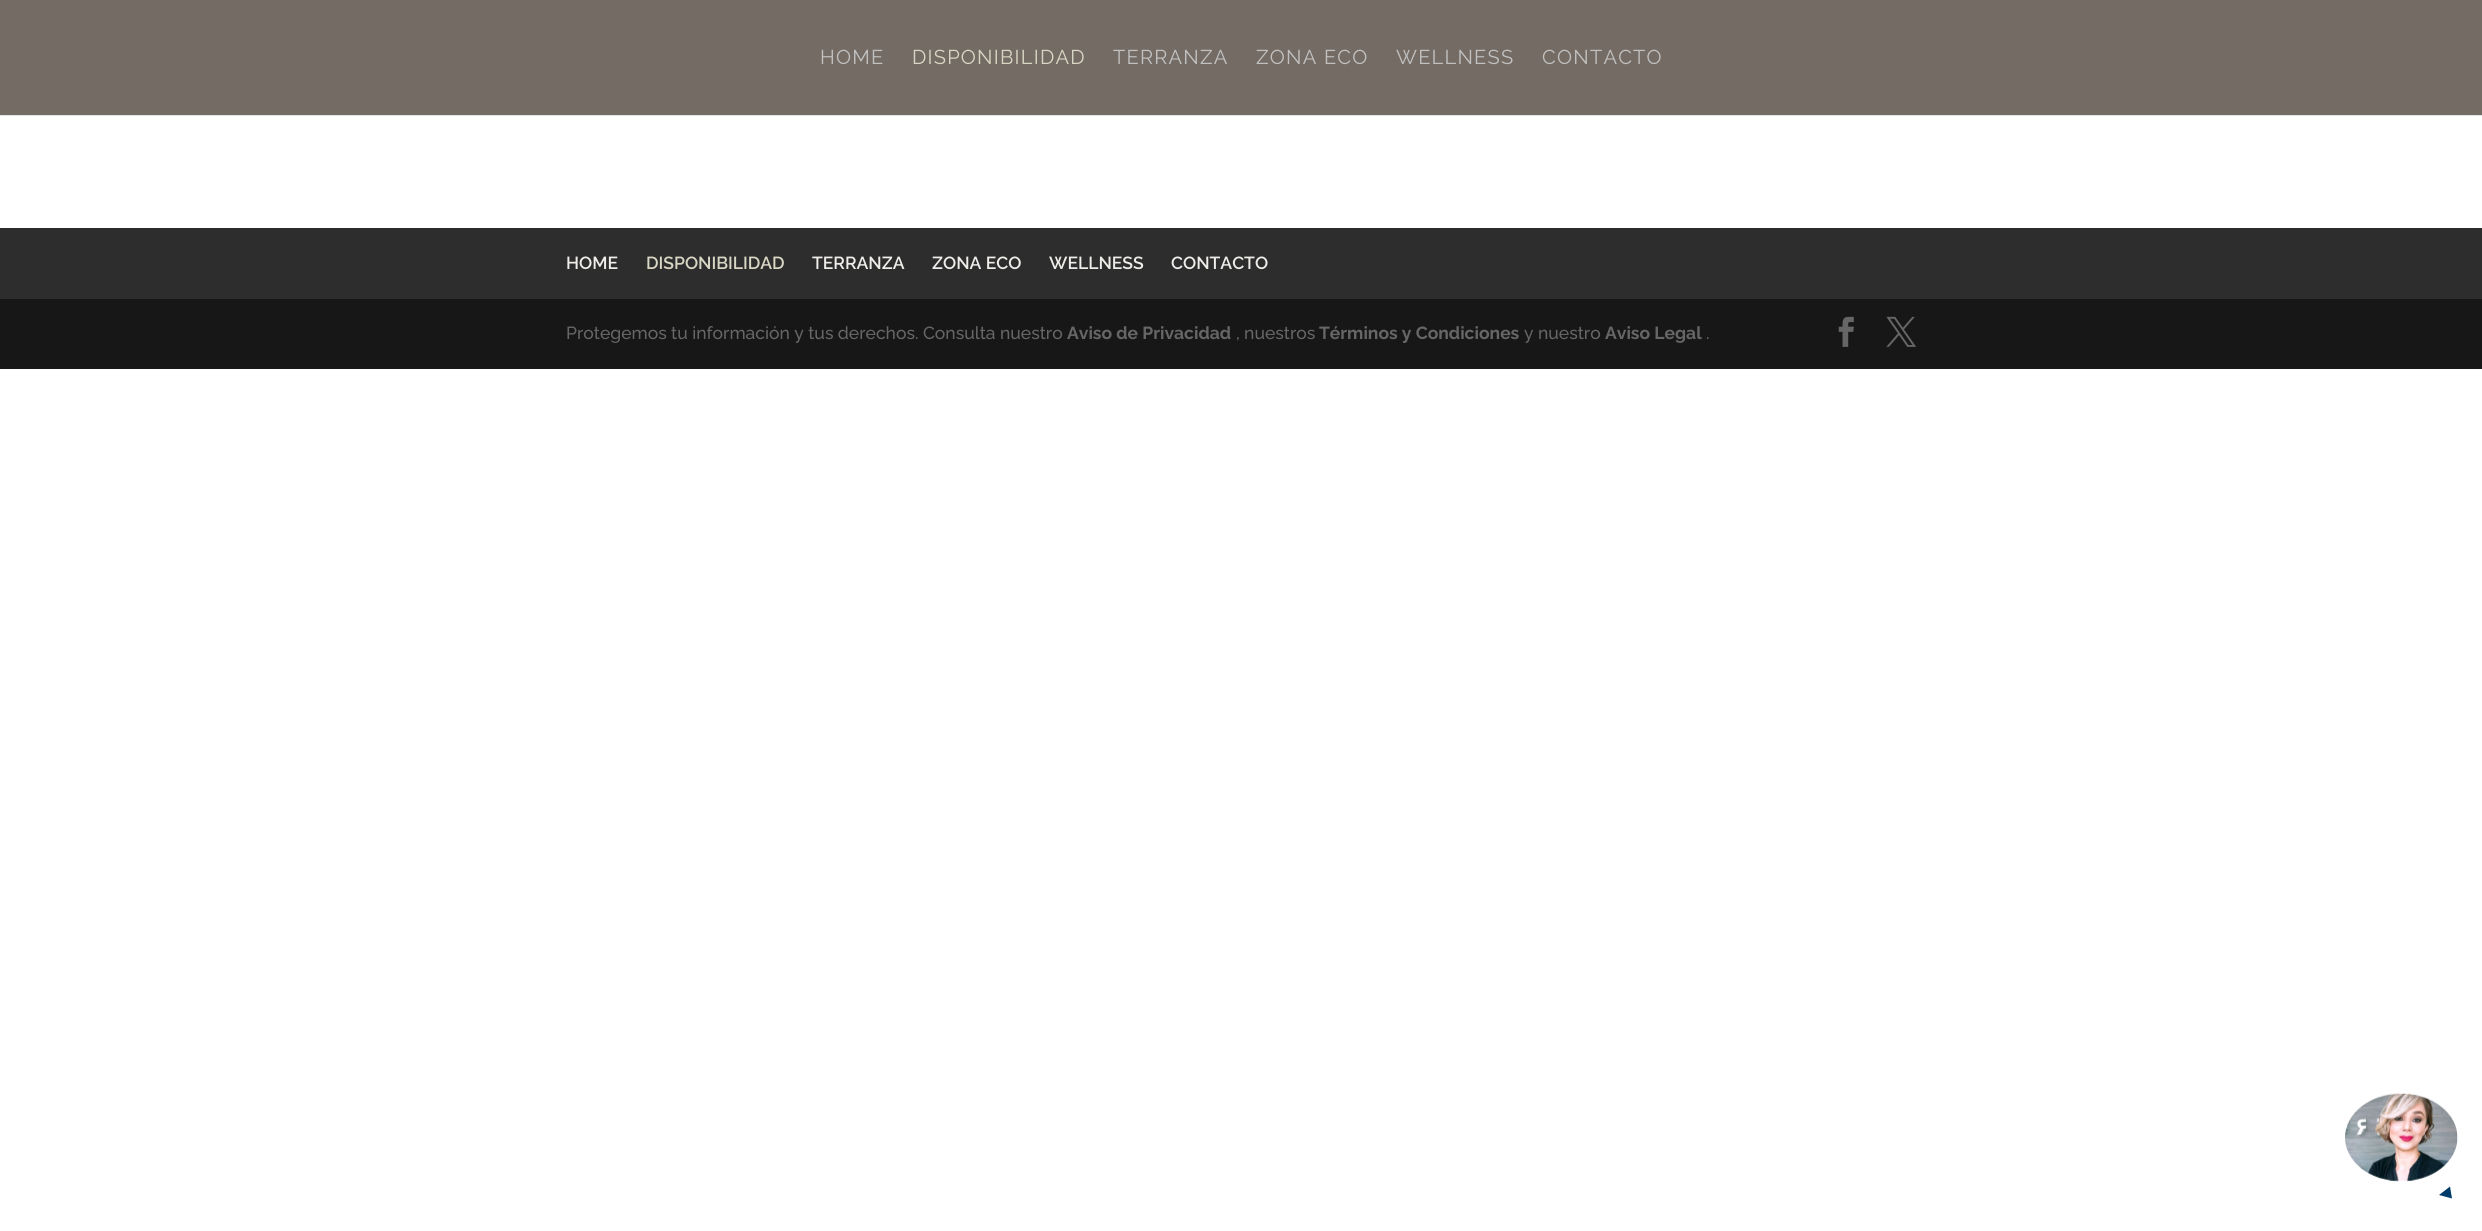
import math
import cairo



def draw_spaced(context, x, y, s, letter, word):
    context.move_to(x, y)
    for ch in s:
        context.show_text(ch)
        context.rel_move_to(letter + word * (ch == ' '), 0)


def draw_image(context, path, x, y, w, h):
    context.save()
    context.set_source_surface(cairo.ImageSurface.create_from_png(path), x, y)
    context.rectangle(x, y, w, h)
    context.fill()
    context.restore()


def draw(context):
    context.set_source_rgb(1, 1, 1)
    context.paint()
    context.set_source_rgb(230 / 255, 230 / 255, 230 / 255)
    context.new_path()
    context.move_to(0, 115)
    context.line_to(0, 116)
    context.line_to(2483, 116)
    context.line_to(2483, 1)
    context.line_to(2482, 1)
    context.line_to(2482, 115)
    context.close_path()
    context.fill()
    context.set_source_rgb(116 / 255, 107 / 255, 100 / 255)
    context.rectangle(0, 0, 2482, 115)
    context.fill()
    context.set_source_rgb(45 / 255, 45 / 255, 45 / 255)
    context.rectangle(0, 228, 2482, 71)
    context.fill()
    context.set_source_rgb(23 / 255, 23 / 255, 23 / 255)
    context.rectangle(0, 299, 2482, 70)
    context.fill()
    draw_image(context, "images/1.png", 1838, 316, 16, 31)
    draw_image(context, "images/2.png", 1886, 316, 30, 31)
    draw_image(context, "images/3.png", 2345, 1093, 113, 89)
    context.set_source_rgb(0, 60 / 255, 105 / 255)
    context.new_path()
    context.move_to(2450, 1186.5)
    context.line_to(2452, 1198.5)
    context.line_to(2439, 1195)
    context.close_path()
    context.fill()
    context.select_font_face("Raleway")
    context.set_font_size(20)
    context.set_source_rgb(193 / 255, 193 / 255, 193 / 255)
    draw_spaced(context, 820, 64, "HOME", 1.25, 0)
    context.set_source_rgb(217 / 255, 215 / 255, 196 / 255)
    draw_spaced(context, 912, 64, "DISPONIBILIDAD", 1.25, 0)
    context.set_source_rgb(193 / 255, 193 / 255, 193 / 255)
    draw_spaced(context, 1113, 64, "TERRANZA", 1.25, 0)
    draw_spaced(context, 1256, 64, "ZONA ECO", 1.25, 0)
    draw_spaced(context, 1396, 64, "WELLNESS", 1.25, 0)
    draw_spaced(context, 1542, 64, "CONTACTO", 1.25, 0)
    context.select_font_face("Raleway SemiBold")
    context.set_font_size(17.5)
    context.set_source_rgb(239 / 255, 237 / 255, 234 / 255)
    context.move_to(566, 269)
    context.show_text("HOME")
    context.set_source_rgb(217 / 255, 215 / 255, 196 / 255)
    context.move_to(646, 269)
    context.show_text("DISPONIBILIDAD")
    context.set_source_rgb(239 / 255, 237 / 255, 234 / 255)
    context.move_to(812, 269)
    context.show_text("TERRANZA")
    context.move_to(932, 269)
    context.show_text("ZONA ECO")
    context.move_to(1049, 269)
    context.show_text("WELLNESS")
    context.move_to(1171, 269)
    context.show_text("CONTACTO")
    context.select_font_face("Raleway Medium")
    context.set_source_rgb(102 / 255, 102 / 255, 102 / 255)
    context.move_to(566, 339)
    context.show_text("Protegemos tu información y tus derechos. Consulta nuestro")
    context.select_font_face("Raleway", cairo.FontSlant.NORMAL, cairo.FontWeight.BOLD)
    context.move_to(1067, 339)
    context.show_text("Aviso de Privacidad")
    context.select_font_face("Raleway Medium")
    context.move_to(1236, 339)
    context.show_text(", nuestros")
    context.select_font_face("Raleway", cairo.FontSlant.NORMAL, cairo.FontWeight.BOLD)
    context.move_to(1319, 339)
    context.show_text("Términos y Condiciones")
    context.select_font_face("Raleway Medium")
    context.move_to(1524, 339)
    context.show_text("y nuestro")
    context.select_font_face("Raleway", cairo.FontSlant.NORMAL, cairo.FontWeight.BOLD)
    context.move_to(1605, 339)
    context.show_text("Aviso Legal")
    context.select_font_face("Raleway Medium")
    context.move_to(1706, 339)
    context.show_text(".")


surface = cairo.ImageSurface(cairo.Format.RGB24, 2482, 1231)
context = cairo.Context(surface)
options = cairo.FontOptions()
options.set_hint_metrics(cairo.HintMetrics.OFF)
options.set_hint_style(cairo.HintStyle.NONE)
context.set_font_options(options)
context.set_miter_limit(4)
draw(context)
surface.write_to_png("out.png")
